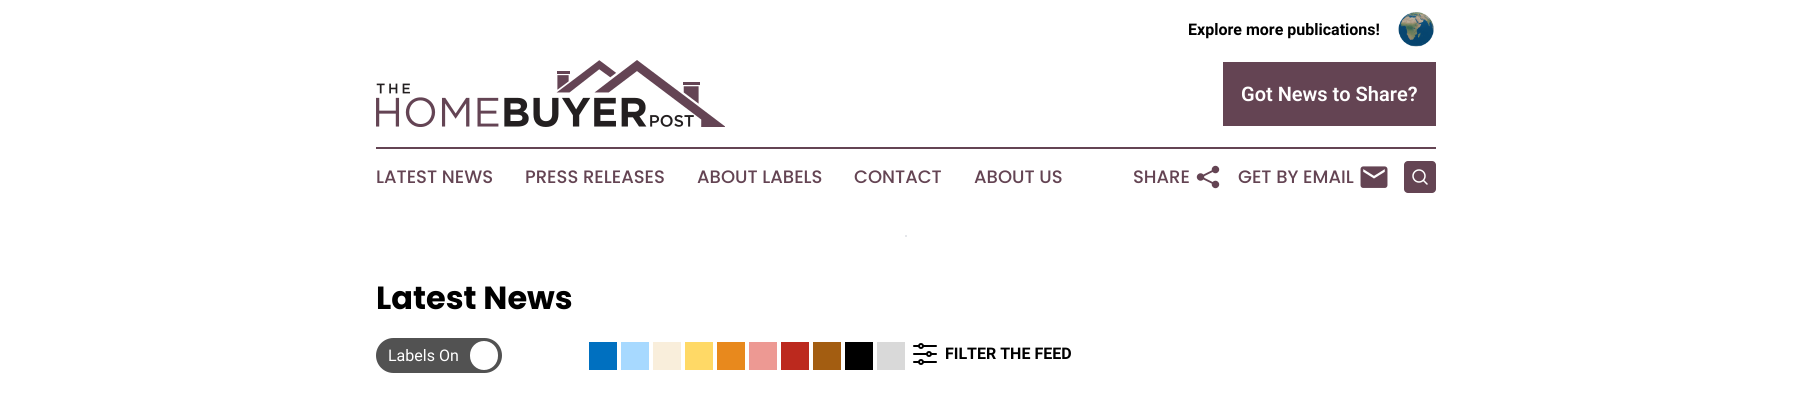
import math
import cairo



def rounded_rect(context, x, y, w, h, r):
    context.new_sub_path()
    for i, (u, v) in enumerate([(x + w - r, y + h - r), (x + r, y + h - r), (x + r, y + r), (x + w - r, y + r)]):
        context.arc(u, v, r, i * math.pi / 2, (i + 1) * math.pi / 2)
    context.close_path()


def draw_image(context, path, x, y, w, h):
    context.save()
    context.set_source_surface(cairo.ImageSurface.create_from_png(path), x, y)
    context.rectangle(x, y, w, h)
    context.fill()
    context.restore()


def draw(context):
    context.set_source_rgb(1, 1, 1)
    context.paint()
    draw_image(context, "images/1.png", 1398, 12, 36, 35)
    draw_image(context, "images/2.png", 376, 60, 349, 67)
    context.set_source_rgb(100 / 255, 68 / 255, 83 / 255)
    context.rectangle(1223, 62, 213, 64)
    context.fill()
    context.rectangle(376, 147, 1060, 2)
    context.fill()
    draw_image(context, "images/3.png", 1196, 165, 24, 24)
    draw_image(context, "images/4.png", 1360, 166, 28, 22)
    rounded_rect(context, 1404, 161, 32, 32, 4)
    context.fill()
    context.arc(1419, 176, 6, 0, 2 * math.pi)
    context.set_source_rgb(1, 1, 1)
    context.set_line_width(1.5)
    context.stroke()
    context.new_path()
    context.move_to(1427, 184)
    context.line_to(1423.5, 180.5)
    context.set_line_cap(cairo.LineCap.ROUND)
    context.set_line_join(cairo.LineJoin.ROUND)
    context.stroke()
    context.set_source_rgb(229 / 255, 231 / 255, 235 / 255)
    context.rectangle(905, 235, 2, 2)
    context.fill()
    context.set_source_rgb(82 / 255, 82 / 255, 82 / 255)
    rounded_rect(context, 376, 338, 126, 35, 17.5)
    context.fill()
    context.set_source_rgb(1, 1, 1)
    rounded_rect(context, 470, 341, 28, 29, 14)
    context.fill()
    context.set_source_rgb(0, 112 / 255, 192 / 255)
    context.rectangle(589, 342, 28, 28)
    context.fill()
    context.set_source_rgb(167 / 255, 217 / 255, 1)
    context.rectangle(621, 342, 28, 28)
    context.fill()
    context.set_source_rgb(249 / 255, 238 / 255, 219 / 255)
    context.rectangle(653, 342, 28, 28)
    context.fill()
    context.set_source_rgb(1, 217 / 255, 102 / 255)
    context.rectangle(685, 342, 28, 28)
    context.fill()
    context.set_source_rgb(232 / 255, 137 / 255, 29 / 255)
    context.rectangle(717, 342, 28, 28)
    context.fill()
    context.set_source_rgb(237 / 255, 153 / 255, 147 / 255)
    context.rectangle(749, 342, 28, 28)
    context.fill()
    context.set_source_rgb(188 / 255, 41 / 255, 30 / 255)
    context.rectangle(781, 342, 28, 28)
    context.fill()
    context.set_source_rgb(163 / 255, 93 / 255, 17 / 255)
    context.rectangle(813, 342, 28, 28)
    context.fill()
    context.set_source_rgb(0, 0, 0)
    context.rectangle(845, 342, 28, 28)
    context.fill()
    context.set_source_rgb(217 / 255, 217 / 255, 217 / 255)
    context.rectangle(877, 342, 28, 28)
    context.fill()
    draw_image(context, "images/5.png", 913, 343, 24, 22)
    context.select_font_face("Roboto", cairo.FontSlant.NORMAL, cairo.FontWeight.BOLD)
    context.set_font_size(16)
    context.set_source_rgb(0, 0, 0)
    context.move_to(1188, 35)
    context.show_text("Explore more publications!")
    context.select_font_face("Roboto SemiBold")
    context.set_font_size(20)
    context.set_source_rgb(1, 1, 1)
    context.move_to(1241, 101)
    context.show_text("Got News to Share?")
    context.select_font_face("Poppins Medium")
    context.set_font_size(18)
    context.set_source_rgb(100 / 255, 68 / 255, 83 / 255)
    context.move_to(376, 183)
    context.show_text("LATEST NEWS")
    context.move_to(525, 183)
    context.show_text("PRESS RELEASES")
    context.move_to(697, 183)
    context.show_text("ABOUT LABELS")
    context.move_to(854, 183)
    context.show_text("CONTACT")
    context.move_to(974, 183)
    context.show_text("ABOUT US")
    context.move_to(1133, 183)
    context.show_text("SHARE")
    context.move_to(1238, 183)
    context.show_text("GET BY EMAIL")
    context.select_font_face("Poppins", cairo.FontSlant.NORMAL, cairo.FontWeight.BOLD)
    context.set_font_size(32)
    context.set_source_rgb(0, 0, 0)
    context.move_to(376, 309)
    context.show_text("Latest News")
    context.select_font_face("Roboto")
    context.set_font_size(16)
    context.set_source_rgb(1, 1, 1)
    context.move_to(388, 361)
    context.show_text("Labels On")
    context.select_font_face("Roboto", cairo.FontSlant.NORMAL, cairo.FontWeight.BOLD)
    context.set_source_rgb(0, 0, 0)
    context.move_to(945, 359)
    context.show_text("FILTER THE FEED")


surface = cairo.ImageSurface(cairo.Format.RGB24, 1811, 394)
context = cairo.Context(surface)
options = cairo.FontOptions()
options.set_hint_metrics(cairo.HintMetrics.OFF)
options.set_hint_style(cairo.HintStyle.NONE)
context.set_font_options(options)
context.set_miter_limit(4)
draw(context)
surface.write_to_png("out.png")
